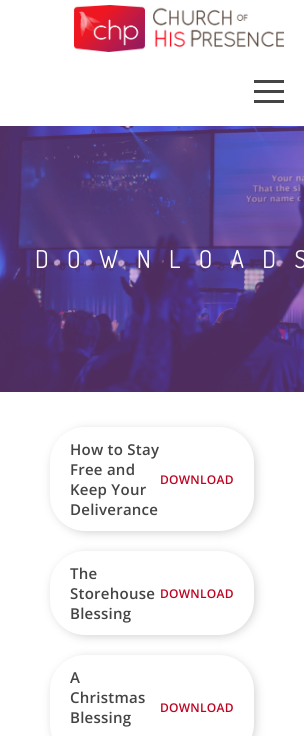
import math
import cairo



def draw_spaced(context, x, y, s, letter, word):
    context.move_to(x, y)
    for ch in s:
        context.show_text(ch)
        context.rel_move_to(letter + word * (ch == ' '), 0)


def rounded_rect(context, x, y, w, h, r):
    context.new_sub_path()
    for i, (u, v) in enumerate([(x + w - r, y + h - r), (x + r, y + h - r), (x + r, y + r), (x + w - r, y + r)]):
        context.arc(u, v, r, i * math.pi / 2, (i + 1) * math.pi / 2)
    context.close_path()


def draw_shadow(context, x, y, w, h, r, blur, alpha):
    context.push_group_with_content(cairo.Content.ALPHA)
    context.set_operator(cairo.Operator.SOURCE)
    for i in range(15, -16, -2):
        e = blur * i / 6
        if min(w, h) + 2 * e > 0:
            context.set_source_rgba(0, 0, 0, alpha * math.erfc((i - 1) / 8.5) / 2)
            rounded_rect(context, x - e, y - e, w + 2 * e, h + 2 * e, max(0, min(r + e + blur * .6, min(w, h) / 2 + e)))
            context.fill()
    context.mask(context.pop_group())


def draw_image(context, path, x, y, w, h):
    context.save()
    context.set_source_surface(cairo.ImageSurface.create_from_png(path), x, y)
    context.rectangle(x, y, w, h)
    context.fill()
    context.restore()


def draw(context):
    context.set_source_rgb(1, 1, 1)
    context.paint()
    draw_image(context, "images/1.png", 74, 5, 210, 47)
    context.set_source_rgb(68 / 255, 68 / 255, 68 / 255)
    context.rectangle(254, 80, 30, 3)
    context.fill()
    context.rectangle(254, 90, 30, 3)
    context.fill()
    context.rectangle(254, 100, 30, 3)
    context.fill()
    draw_image(context, "images/2.png", 0, 126, 304, 266)
    context.set_source_rgb(0, 0, 0)
    draw_shadow(context, 53, 430, 202, 102, 34, 5, 0.2)
    context.set_source_rgb(1, 1, 1)
    rounded_rect(context, 50, 427, 204, 104, 35)
    context.fill()
    context.set_source_rgb(0, 0, 0)
    draw_shadow(context, 53, 554, 202, 82, 34, 5, 0.2)
    context.set_source_rgb(1, 1, 1)
    rounded_rect(context, 50, 551, 204, 84, 35)
    context.fill()
    context.set_source_rgb(0, 0, 0)
    draw_shadow(context, 53, 658, 202, 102, 34, 5, 0.2)
    context.set_source_rgb(1, 1, 1)
    rounded_rect(context, 50, 655, 204, 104, 35)
    context.fill()
    context.select_font_face("Dosis")
    context.set_font_size(24.5)
    draw_spaced(context, 35, 268, "DOWNLOADS", 18.4, 0)
    context.select_font_face("Open Sans SemiBold")
    context.set_font_size(15)
    context.set_source_rgb(68 / 255, 68 / 255, 68 / 255)
    draw_spaced(context, 70, 455, "How to Stay", 0.25, 0)
    draw_spaced(context, 70, 475, "Free and", 0.25, 0)
    draw_spaced(context, 70, 495, "Keep Your", 0.25, 0)
    draw_spaced(context, 70, 515, "Deliverance", 0.25, 0)
    context.set_font_size(12)
    context.set_source_rgb(189 / 255, 3 / 255, 33 / 255)
    draw_spaced(context, 160, 484, "DOWNLOAD", 0.25, 0)
    context.set_font_size(15)
    context.set_source_rgb(68 / 255, 68 / 255, 68 / 255)
    draw_spaced(context, 70, 579, "The", 0.25, 0)
    draw_spaced(context, 70, 599, "Storehouse", 0.25, 0)
    draw_spaced(context, 70, 619, "Blessing", 0.25, 0)
    context.set_font_size(12)
    context.set_source_rgb(189 / 255, 3 / 255, 33 / 255)
    draw_spaced(context, 160, 598, "DOWNLOAD", 0.25, 0)
    context.set_font_size(15)
    context.set_source_rgb(68 / 255, 68 / 255, 68 / 255)
    draw_spaced(context, 70, 683, "A", 0.25, 0)
    draw_spaced(context, 70, 703, "Christmas", 0.25, 0)
    draw_spaced(context, 70, 723, "Blessing", 0.25, 0)
    context.set_font_size(12)
    context.set_source_rgb(189 / 255, 3 / 255, 33 / 255)
    draw_spaced(context, 160, 712, "DOWNLOAD", 0.25, 0)


surface = cairo.ImageSurface(cairo.Format.RGB24, 304, 736)
context = cairo.Context(surface)
options = cairo.FontOptions()
options.set_hint_metrics(cairo.HintMetrics.OFF)
options.set_hint_style(cairo.HintStyle.NONE)
context.set_font_options(options)
context.set_miter_limit(4)
draw(context)
surface.write_to_png("out.png")
